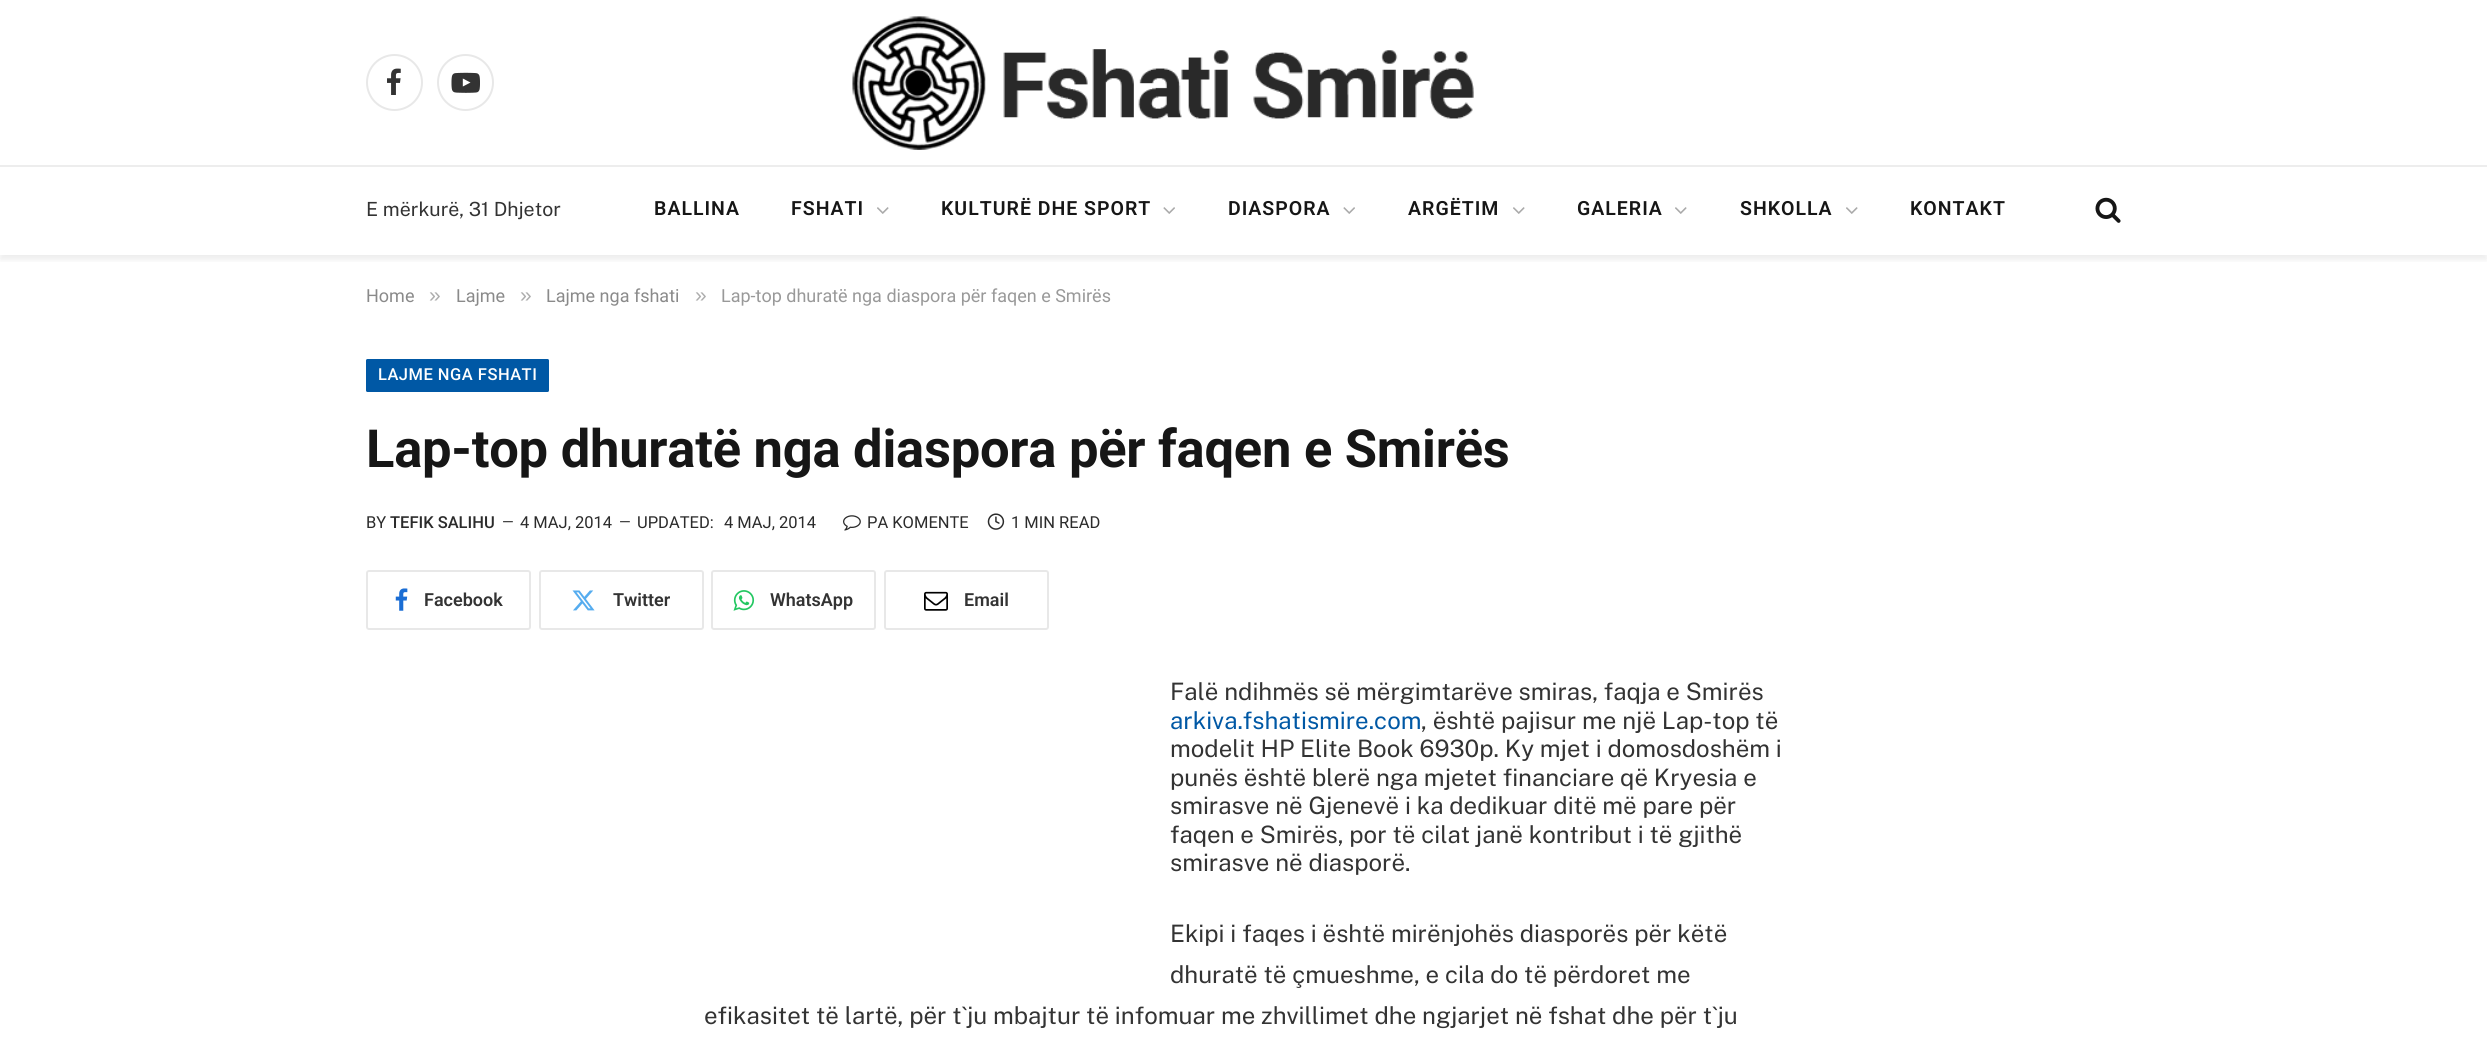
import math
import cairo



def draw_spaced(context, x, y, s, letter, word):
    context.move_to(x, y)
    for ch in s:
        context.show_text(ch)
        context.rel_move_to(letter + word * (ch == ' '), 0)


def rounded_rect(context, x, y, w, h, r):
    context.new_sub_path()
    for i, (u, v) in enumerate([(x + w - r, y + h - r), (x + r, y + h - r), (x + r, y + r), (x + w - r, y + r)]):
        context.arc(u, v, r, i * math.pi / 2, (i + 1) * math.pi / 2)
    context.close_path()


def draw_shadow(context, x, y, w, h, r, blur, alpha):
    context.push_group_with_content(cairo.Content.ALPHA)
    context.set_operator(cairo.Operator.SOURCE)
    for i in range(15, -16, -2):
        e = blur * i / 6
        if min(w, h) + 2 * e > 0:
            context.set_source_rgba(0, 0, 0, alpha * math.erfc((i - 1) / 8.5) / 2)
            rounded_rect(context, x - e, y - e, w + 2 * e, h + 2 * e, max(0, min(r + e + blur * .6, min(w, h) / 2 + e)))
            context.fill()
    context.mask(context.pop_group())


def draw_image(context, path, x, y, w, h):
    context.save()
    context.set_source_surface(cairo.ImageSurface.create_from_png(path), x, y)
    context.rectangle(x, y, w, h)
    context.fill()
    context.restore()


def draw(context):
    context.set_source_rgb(1, 1, 1)
    context.paint()
    context.save()
    context.rectangle(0, 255, 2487, 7)
    context.clip()
    context.set_source_rgb(0, 0, 0)
    draw_shadow(context, 0, 5, 2487, 255, 0, 3, 0.07)
    context.restore()
    context.arc(394.5, 82.5, 27.5, 0, 2 * math.pi)
    context.set_source_rgb(232 / 255, 232 / 255, 232 / 255)
    context.stroke()
    draw_image(context, "images/1.png", 387, 68, 14, 27)
    context.arc(465.5, 82.5, 27.5, 0, 2 * math.pi)
    context.stroke()
    draw_image(context, "images/2.png", 451, 72, 29, 21)
    draw_image(context, "images/3.png", 852, 16, 622, 134)
    context.set_source_rgb(237 / 255, 237 / 255, 237 / 255)
    context.rectangle(0, 165, 2487, 2)
    context.fill()
    draw_image(context, "images/4.png", 877, 207, 12, 7)
    draw_image(context, "images/5.png", 1163, 207, 12, 7)
    draw_image(context, "images/5.png", 1343, 207, 12, 7)
    draw_image(context, "images/4.png", 1513, 207, 12, 7)
    draw_image(context, "images/4.png", 1675, 207, 12, 7)
    draw_image(context, "images/4.png", 1846, 207, 12, 7)
    draw_image(context, "images/6.png", 2095, 197, 26, 26)
    context.set_source_rgb(0, 88 / 255, 165 / 255)
    rounded_rect(context, 366, 359, 183, 33, 1.5)
    context.fill()
    draw_image(context, "images/7.png", 843, 515, 18, 16)
    draw_image(context, "images/8.png", 987, 513, 18, 17)
    rounded_rect(context, 367, 571, 163, 58, 2)
    context.set_source_rgb(232 / 255, 232 / 255, 232 / 255)
    context.stroke()
    draw_image(context, "images/9.png", 395, 588, 13, 23)
    rounded_rect(context, 540, 571, 163, 58, 2)
    context.stroke()
    draw_image(context, "images/10.png", 572, 590, 23, 21)
    rounded_rect(context, 712, 571, 163, 58, 2)
    context.stroke()
    draw_image(context, "images/11.png", 733, 590, 22, 21)
    rounded_rect(context, 885, 571, 163, 58, 2)
    context.stroke()
    draw_image(context, "images/12.png", 924, 591, 24, 20)
    context.select_font_face("Public Sans")
    context.set_font_size(19.5)
    context.set_source_rgb(51 / 255, 51 / 255, 51 / 255)
    context.move_to(366, 216)
    context.show_text("E mërkurë, 31 Dhjetor")
    context.select_font_face("Roboto SemiBold")
    context.set_source_rgb(22 / 255, 22 / 255, 22 / 255)
    draw_spaced(context, 654, 215, "BALLINA", 1, 0)
    draw_spaced(context, 791, 215, "FSHATI", 1, 0)
    draw_spaced(context, 941, 215, "KULTURË DHE SPORT", 1, 0)
    draw_spaced(context, 1228, 215, "DIASPORA", 1, 0)
    draw_spaced(context, 1408, 215, "ARGËTIM", 1, 0)
    draw_spaced(context, 1577, 215, "GALERIA", 1, 0)
    draw_spaced(context, 1740, 215, "SHKOLLA", 1, 0)
    draw_spaced(context, 1910, 215, "KONTAKT", 1, 0)
    context.select_font_face("Roboto")
    context.set_font_size(18)
    context.set_source_rgb(138 / 255, 138 / 255, 138 / 255)
    context.move_to(366, 302)
    context.show_text("Home")
    context.select_font_face("Liberation Sans")
    context.set_font_size(21)
    context.set_source_rgb(173 / 255, 173 / 255, 173 / 255)
    context.move_to(429, 302)
    context.show_text("»")
    context.select_font_face("Roboto")
    context.set_font_size(18)
    context.set_source_rgb(138 / 255, 138 / 255, 138 / 255)
    context.move_to(456, 302)
    context.show_text("Lajme")
    context.select_font_face("Liberation Sans")
    context.set_font_size(21)
    context.set_source_rgb(173 / 255, 173 / 255, 173 / 255)
    context.move_to(520, 302)
    context.show_text("»")
    context.select_font_face("Roboto")
    context.set_font_size(18)
    context.set_source_rgb(138 / 255, 138 / 255, 138 / 255)
    context.move_to(546, 302)
    context.show_text("Lajme nga fshati")
    context.select_font_face("Liberation Sans")
    context.set_font_size(21)
    context.set_source_rgb(173 / 255, 173 / 255, 173 / 255)
    context.move_to(695, 302)
    context.show_text("»")
    context.select_font_face("Roboto")
    context.set_font_size(18)
    context.set_source_rgb(153 / 255, 153 / 255, 153 / 255)
    context.move_to(721, 302)
    context.show_text("Lap-top dhuratë nga diaspora për faqen e Smirës")
    context.select_font_face("Roboto Medium")
    context.set_font_size(16.5)
    context.set_source_rgb(1, 1, 1)
    draw_spaced(context, 378, 380, "LAJME NGA FSHATI", 0.5, 0)
    context.select_font_face("Roboto", cairo.FontSlant.NORMAL, cairo.FontWeight.BOLD)
    context.set_font_size(52.5)
    context.set_source_rgb(22 / 255, 22 / 255, 22 / 255)
    draw_spaced(context, 366, 467, "Lap-top dhuratë nga diaspora për faqen e Smirës", -0.25, 0)
    context.select_font_face("Roboto")
    context.set_font_size(16.5)
    context.set_source_rgb(43 / 255, 43 / 255, 43 / 255)
    context.move_to(366, 528)
    context.show_text("BY")
    context.select_font_face("Roboto Medium")
    context.move_to(390, 528)
    context.show_text("TEFIK SALIHU")
    context.select_font_face("Roboto")
    context.set_font_size(15)
    context.move_to(502, 527)
    context.show_text("—")
    context.set_font_size(16.5)
    context.move_to(520, 528)
    context.show_text("4 MAJ, 2014")
    context.set_font_size(15)
    context.move_to(619, 527)
    context.show_text("—")
    context.set_font_size(16.5)
    context.move_to(637, 528)
    context.show_text("UPDATED:")
    context.move_to(724, 528)
    context.show_text("4 MAJ, 2014")
    context.move_to(867, 528)
    context.show_text("PA KOMENTE")
    context.move_to(1011, 528)
    context.show_text("1 MIN READ")
    context.select_font_face("Roboto SemiBold")
    context.set_font_size(18)
    context.set_source_rgb(51 / 255, 51 / 255, 51 / 255)
    context.move_to(424, 606)
    context.show_text("Facebook")
    context.move_to(613, 606)
    context.show_text("Twitter")
    context.move_to(770, 606)
    context.show_text("WhatsApp")
    context.move_to(964, 606)
    context.show_text("Email")
    context.select_font_face("Public Sans")
    context.set_font_size(24)
    context.move_to(1170, 700)
    context.show_text("Falë ndihmës së mërgimtarëve smiras, faqja e Smirës")
    context.set_source_rgb(0, 88 / 255, 165 / 255)
    context.move_to(1170, 729)
    context.show_text("arkiva.fshatismire.com")
    context.set_source_rgb(51 / 255, 51 / 255, 51 / 255)
    context.move_to(1421, 729)
    context.show_text(", është pajisur me një Lap-top të")
    context.move_to(1170, 757)
    context.show_text("modelit HP Elite Book 6930p. Ky mjet i domosdoshëm i")
    context.move_to(1170, 786)
    context.show_text("punës është blerë nga mjetet financiare që Kryesia e")
    context.move_to(1170, 814)
    context.show_text("smirasve në Gjenevë i ka dedikuar ditë më pare për")
    context.move_to(1170, 843)
    context.show_text("faqen e Smirës, por të cilat janë kontribut i të gjithë")
    context.move_to(1170, 871)
    context.show_text("smirasve në diasporë.")
    context.move_to(1170, 942)
    context.show_text("Ekipi i faqes i është mirënjohës diasporës për këtë")
    context.move_to(1170, 983)
    context.show_text("dhuratë të çmueshme, e cila do të përdoret me")
    context.move_to(704, 1024)
    context.show_text("efikasitet të lartë, për t`ju mbajtur të infomuar me zhvillimet dhe ngjarjet në fshat dhe për t`ju")


surface = cairo.ImageSurface(cairo.Format.RGB24, 2487, 1059)
context = cairo.Context(surface)
options = cairo.FontOptions()
options.set_hint_metrics(cairo.HintMetrics.OFF)
options.set_hint_style(cairo.HintStyle.NONE)
context.set_font_options(options)
context.set_miter_limit(4)
draw(context)
surface.write_to_png("out.png")
